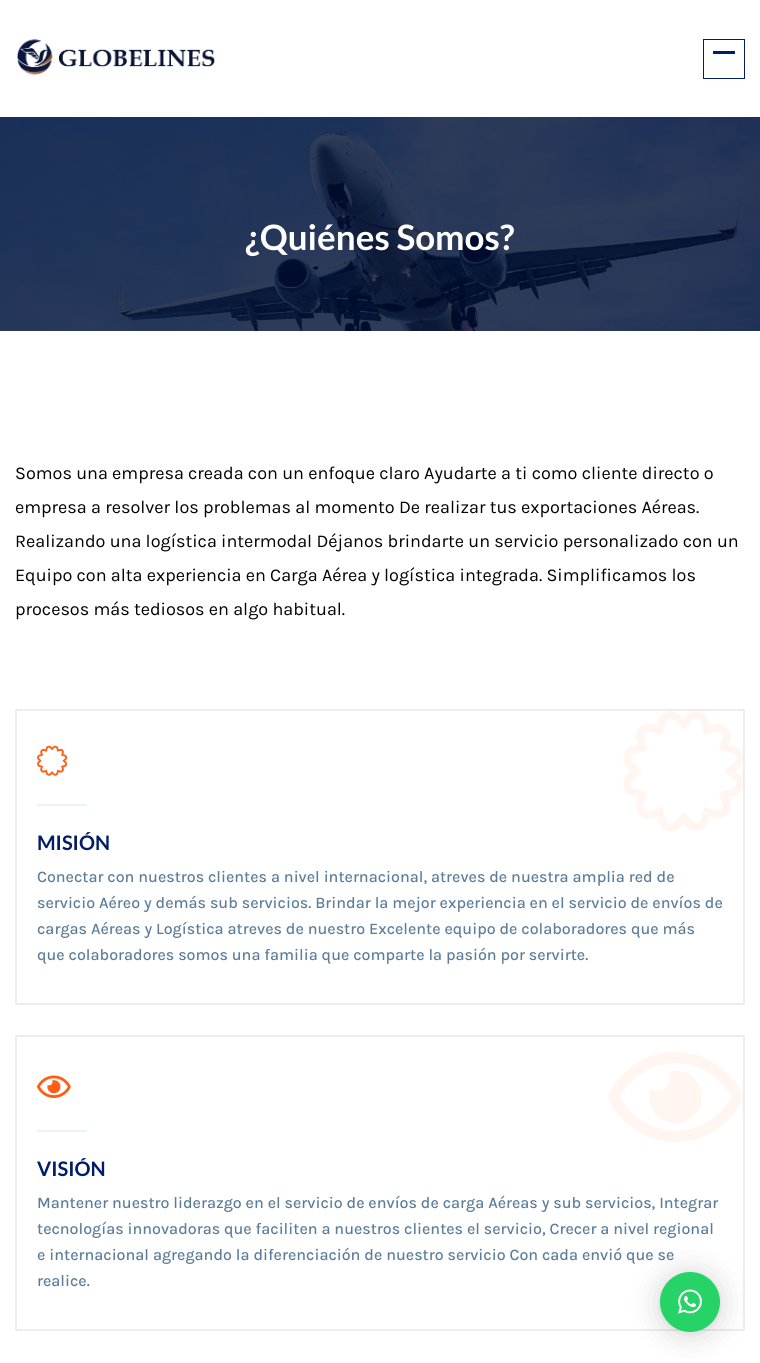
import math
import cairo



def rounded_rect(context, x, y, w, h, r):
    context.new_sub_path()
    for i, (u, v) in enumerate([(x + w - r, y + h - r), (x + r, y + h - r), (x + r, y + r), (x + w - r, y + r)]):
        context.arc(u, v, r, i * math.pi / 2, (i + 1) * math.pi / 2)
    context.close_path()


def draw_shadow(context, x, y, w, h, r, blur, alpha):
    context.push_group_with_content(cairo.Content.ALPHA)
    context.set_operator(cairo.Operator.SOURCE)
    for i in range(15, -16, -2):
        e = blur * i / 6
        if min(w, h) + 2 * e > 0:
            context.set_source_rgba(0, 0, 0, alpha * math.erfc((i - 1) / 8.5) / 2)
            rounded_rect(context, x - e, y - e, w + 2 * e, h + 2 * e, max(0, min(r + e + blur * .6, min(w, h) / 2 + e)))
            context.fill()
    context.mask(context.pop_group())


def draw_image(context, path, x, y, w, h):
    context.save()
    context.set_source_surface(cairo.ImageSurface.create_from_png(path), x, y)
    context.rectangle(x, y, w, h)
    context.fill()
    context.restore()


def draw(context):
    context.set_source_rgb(1, 1, 1)
    context.paint()
    draw_image(context, "images/1.png", 16, 39, 199, 36)
    context.rectangle(703.5, 39.5, 41, 39)
    context.set_source_rgb(0, 29 / 255, 103 / 255)
    context.set_line_width(1)
    context.stroke()
    context.rectangle(713, 51, 22, 3)
    context.fill()
    draw_image(context, "images/2.png", 0, 117, 760, 214)
    context.rectangle(16, 710, 728, 294)
    context.set_source_rgb(237 / 255, 237 / 255, 237 / 255)
    context.set_line_width(2)
    context.stroke()
    draw_image(context, "images/3.png", 37, 745, 31, 31)
    context.set_source_rgb(234 / 255, 241 / 255, 1)
    context.rectangle(37, 804, 50, 2)
    context.fill()
    draw_image(context, "images/4.png", 623, 711, 120, 120)
    context.rectangle(16, 1036, 728, 294)
    context.set_source_rgb(237 / 255, 237 / 255, 237 / 255)
    context.stroke()
    draw_image(context, "images/5.png", 37, 1075, 34, 23)
    context.set_source_rgb(234 / 255, 241 / 255, 1)
    context.rectangle(37, 1130, 50, 2)
    context.fill()
    draw_image(context, "images/6.png", 608, 1052, 135, 90)
    context.set_source_rgb(0, 0, 0)
    draw_shadow(context, 660, 1274, 60, 60, 30, 16, 0.16)
    draw_shadow(context, 660, 1273, 60, 60, 30, 3, 0.06)
    context.set_source_rgb(37 / 255, 211 / 255, 102 / 255)
    context.arc(690, 1302, 30, 0, 2 * math.pi)
    context.fill()
    draw_image(context, "images/7.png", 678, 1289, 24, 25)
    context.select_font_face("Lato", cairo.FontSlant.NORMAL, cairo.FontWeight.BOLD)
    context.set_font_size(35)
    context.set_source_rgb(1, 1, 1)
    context.move_to(245, 250)
    context.show_text("¿Quiénes Somos?")
    context.select_font_face("Karla")
    context.set_font_size(18)
    context.set_source_rgb(0, 0, 0)
    context.move_to(15, 479)
    context.show_text("Somos una empresa creada con un enfoque claro Ayudarte a ti como cliente directo o")
    context.move_to(15, 513)
    context.show_text("empresa a resolver los problemas al momento De realizar tus exportaciones Aéreas.")
    context.move_to(15, 547)
    context.show_text("Realizando una logística intermodal Déjanos brindarte un servicio personalizado con un")
    context.move_to(15, 581)
    context.show_text("Equipo con alta experiencia en Carga Aérea y logística integrada. Simplificamos los")
    context.move_to(15, 615)
    context.show_text("procesos más tediosos en algo habitual.")
    context.select_font_face("Lato", cairo.FontSlant.NORMAL, cairo.FontWeight.BOLD)
    context.set_font_size(20)
    context.set_source_rgb(0, 29 / 255, 103 / 255)
    context.move_to(37, 850)
    context.show_text("MISIÓN")
    context.select_font_face("Karla Medium")
    context.set_font_size(16)
    context.set_source_rgb(91 / 255, 125 / 255, 154 / 255)
    context.move_to(37, 882)
    context.show_text("Conectar con nuestros clientes a nivel internacional, atreves de nuestra amplia red de")
    context.move_to(37, 908)
    context.show_text("servicio Aéreo y demás sub servicios. Brindar la mejor experiencia en el servicio de envíos de")
    context.move_to(37, 934)
    context.show_text("cargas Aéreas y Logística atreves de nuestro Excelente equipo de colaboradores que más")
    context.move_to(37, 960)
    context.show_text("que colaboradores somos una familia que comparte la pasión por servirte.")
    context.select_font_face("Lato", cairo.FontSlant.NORMAL, cairo.FontWeight.BOLD)
    context.set_font_size(20)
    context.set_source_rgb(0, 29 / 255, 103 / 255)
    context.move_to(37, 1176)
    context.show_text("VISIÓN")
    context.select_font_face("Karla Medium")
    context.set_font_size(16)
    context.set_source_rgb(91 / 255, 125 / 255, 154 / 255)
    context.move_to(37, 1208)
    context.show_text("Mantener nuestro liderazgo en el servicio de envíos de carga Aéreas y sub servicios, Integrar")
    context.move_to(37, 1234)
    context.show_text("tecnologías innovadoras que faciliten a nuestros clientes el servicio, Crecer a nivel regional")
    context.move_to(37, 1260)
    context.show_text("e internacional agregando la diferenciación de nuestro servicio Con cada envió que se")
    context.move_to(37, 1286)
    context.show_text("realice.")


surface = cairo.ImageSurface(cairo.Format.RGB24, 760, 1363)
context = cairo.Context(surface)
options = cairo.FontOptions()
options.set_hint_metrics(cairo.HintMetrics.OFF)
options.set_hint_style(cairo.HintStyle.NONE)
context.set_font_options(options)
context.set_miter_limit(4)
draw(context)
surface.write_to_png("out.png")
